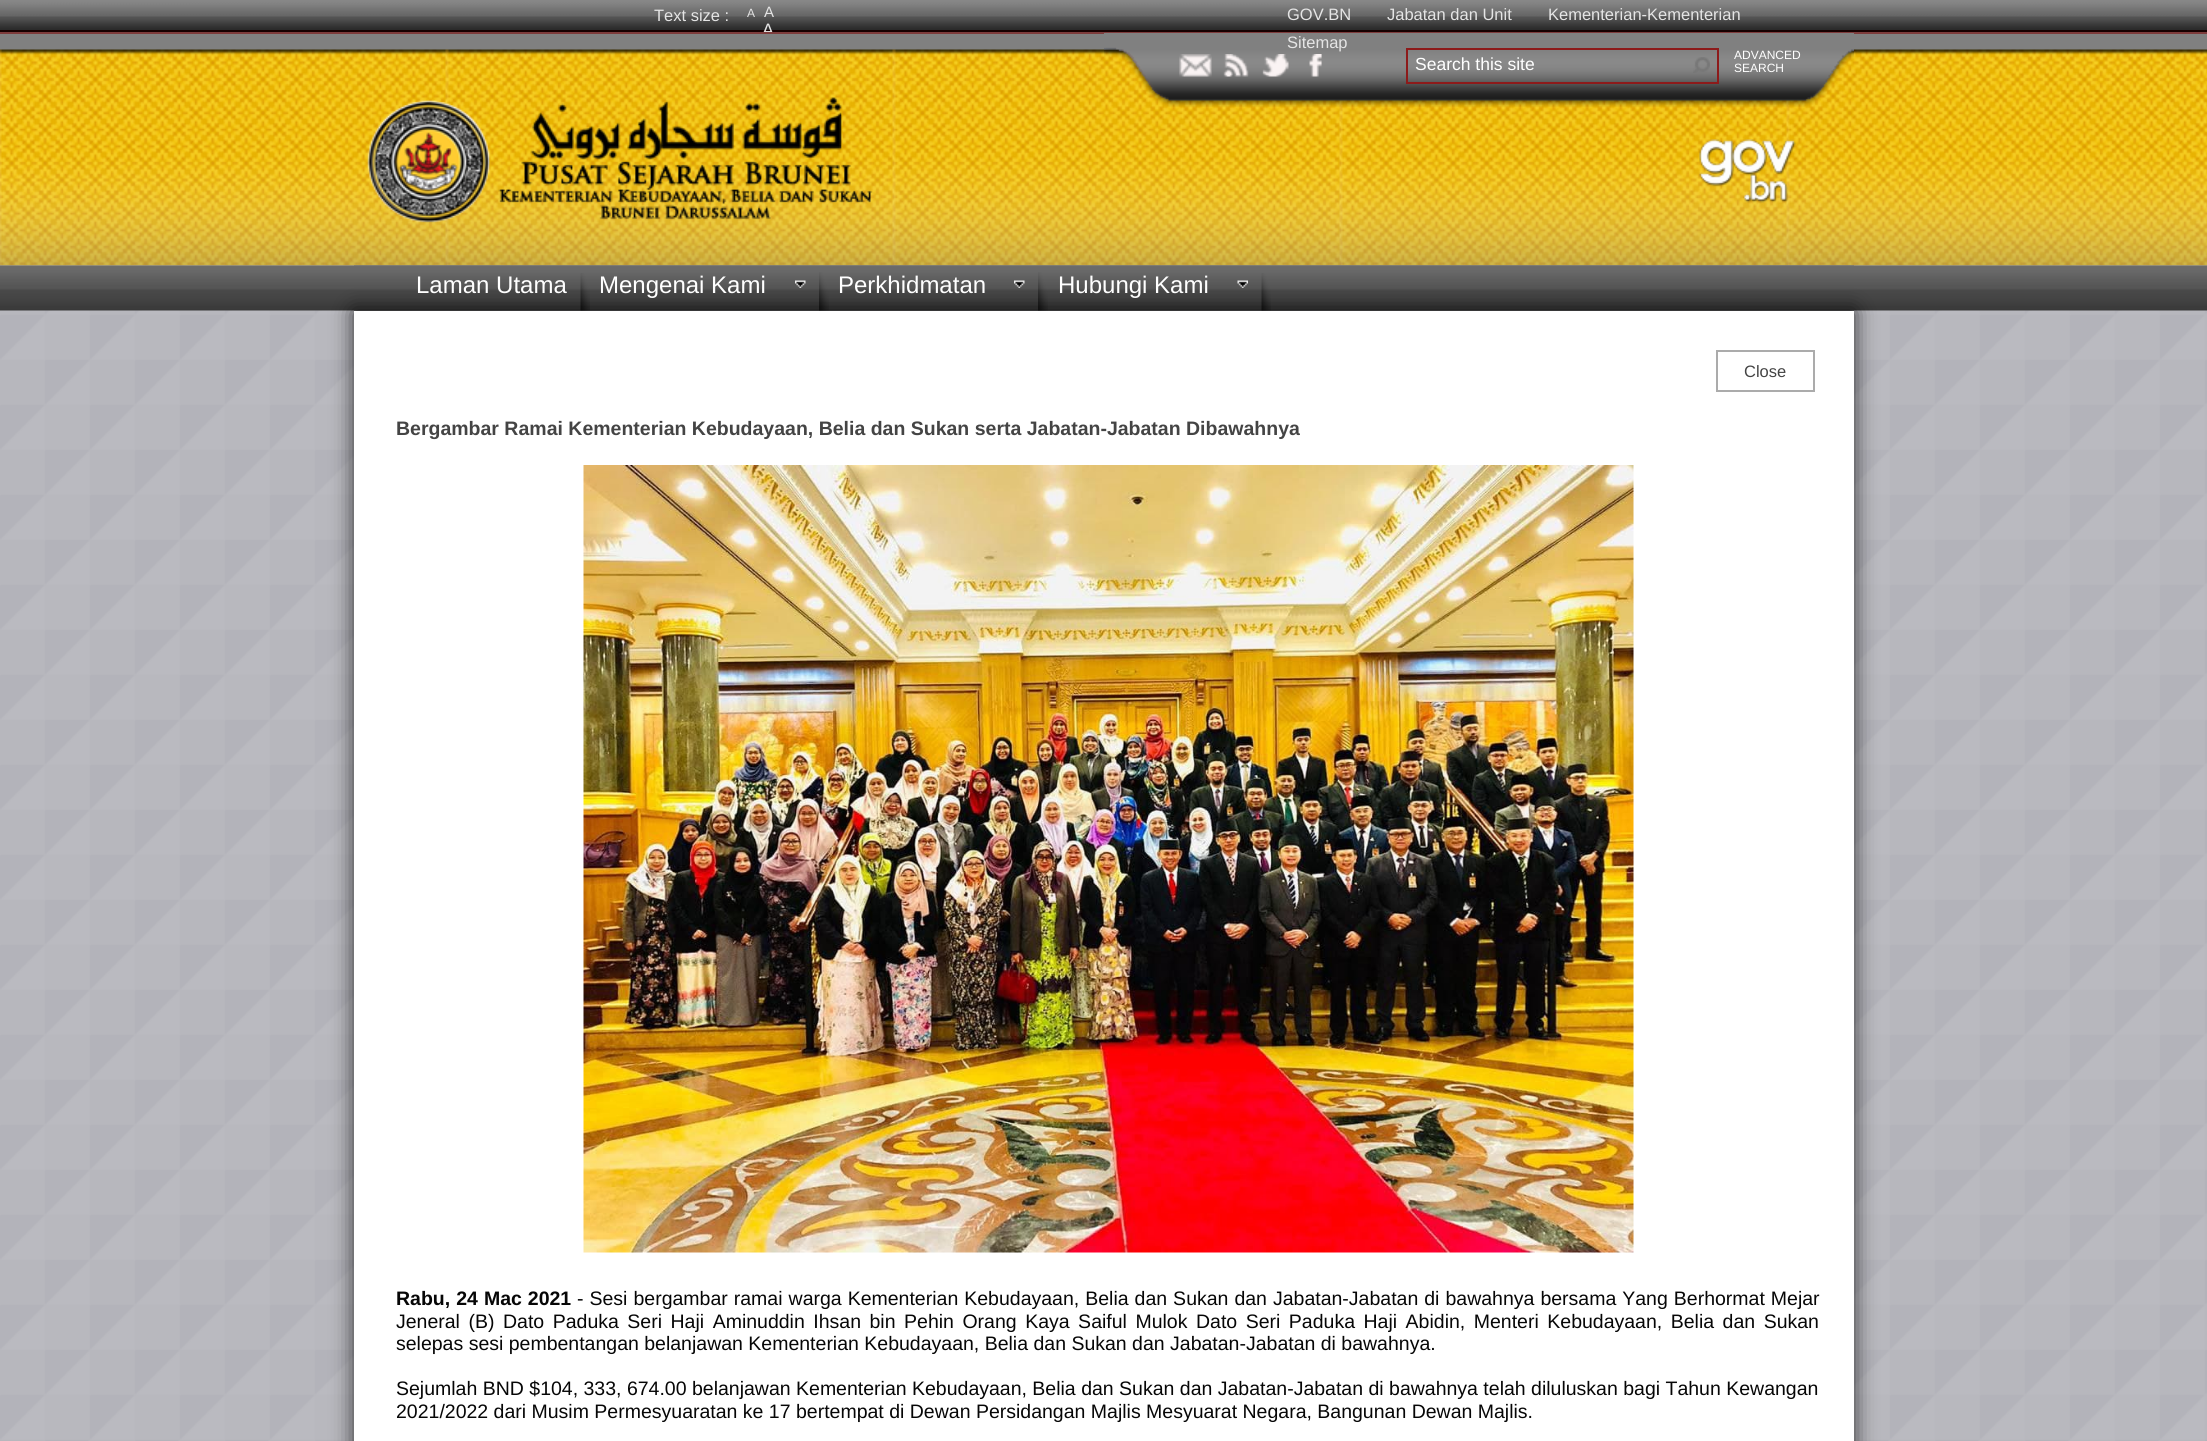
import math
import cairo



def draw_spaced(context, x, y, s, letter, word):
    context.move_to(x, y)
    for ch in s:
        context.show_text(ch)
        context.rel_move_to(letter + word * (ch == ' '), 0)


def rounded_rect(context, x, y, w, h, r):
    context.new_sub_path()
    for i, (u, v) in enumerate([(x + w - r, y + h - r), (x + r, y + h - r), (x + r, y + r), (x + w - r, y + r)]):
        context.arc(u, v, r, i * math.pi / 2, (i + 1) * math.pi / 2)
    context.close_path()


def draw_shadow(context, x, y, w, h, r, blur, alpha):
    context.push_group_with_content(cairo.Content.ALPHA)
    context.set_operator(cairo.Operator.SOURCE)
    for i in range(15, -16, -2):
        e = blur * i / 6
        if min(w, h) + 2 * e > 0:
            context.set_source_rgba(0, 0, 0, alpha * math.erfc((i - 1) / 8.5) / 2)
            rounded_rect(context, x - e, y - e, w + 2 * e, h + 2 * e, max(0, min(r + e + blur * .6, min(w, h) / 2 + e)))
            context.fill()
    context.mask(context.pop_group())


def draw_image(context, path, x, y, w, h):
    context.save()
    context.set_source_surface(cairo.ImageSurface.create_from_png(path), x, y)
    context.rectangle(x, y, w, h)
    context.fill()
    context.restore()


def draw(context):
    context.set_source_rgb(1, 1, 1)
    context.paint()
    draw_image(context, "images/1.png", 0, 265, 2207, 1176)
    draw_image(context, "images/2.png", 0, 0, 2207, 30)
    context.set_source_rgb(22 / 255, 0, 0)
    context.rectangle(0, 30, 2207, 2)
    context.fill()
    context.select_font_face("Liberation Sans")
    context.set_font_size(16.5)
    context.set_source_rgb(229 / 255, 229 / 255, 229 / 255)
    context.move_to(654, 21)
    context.show_text("Text size :")
    context.set_font_size(12)
    context.move_to(747, 17)
    context.show_text("A")
    context.set_font_size(15)
    context.move_to(764, 17)
    context.show_text("A")
    context.set_font_size(18)
    context.move_to(762, 36)
    context.show_text("A")
    context.set_font_size(16.5)
    context.move_to(1287, 20)
    context.show_text("GOV.BN")
    context.move_to(1387, 20)
    context.show_text("Jabatan dan Unit")
    context.move_to(1548, 20)
    context.show_text("Kementerian-Kementerian")
    draw_image(context, "images/3.png", 0, 34, 2207, 232)
    context.set_source_rgb(126 / 255, 59 / 255, 59 / 255)
    context.rectangle(0, 32, 2207, 2)
    context.fill()
    draw_image(context, "images/4.png", 1104, 33, 750, 74)
    context.set_source_rgb(229 / 255, 229 / 255, 229 / 255)
    context.move_to(1287, 48)
    context.show_text("Sitemap")
    draw_image(context, "images/5.png", 1179, 54, 33, 23)
    draw_image(context, "images/6.png", 1223, 54, 26, 23)
    draw_image(context, "images/7.png", 1262, 54, 27, 23)
    draw_image(context, "images/8.png", 1309, 54, 13, 23)
    context.rectangle(1407, 49, 311, 34)
    context.set_source_rgb(141 / 255, 26 / 255, 26 / 255)
    context.stroke()
    context.set_font_size(17.5)
    context.set_source_rgb(1, 1, 1)
    context.move_to(1415, 70)
    context.show_text("Search this site")
    draw_image(context, "images/9.png", 1693, 57, 17, 16)
    context.set_font_size(12)
    context.move_to(1734, 59)
    context.show_text("ADVANCED")
    context.move_to(1734, 72)
    context.show_text("SEARCH")
    draw_image(context, "images/10.png", 1699, 139, 97, 64)
    draw_image(context, "images/11.png", 367, 97, 506, 126)
    draw_image(context, "images/12.png", 0, 265, 2207, 46)
    draw_image(context, "images/13.png", 354, 265, 1500, 46)
    context.set_source_rgb(0, 0, 0)
    draw_shadow(context, 354, 311, 1500, 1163, 0, 11, 0.75)
    context.set_font_size(24)
    context.set_source_rgb(1, 1, 1)
    context.move_to(1058, 293)
    context.show_text("Hubungi Kami")
    draw_image(context, "images/19.png", 1237, 280, 11, 8)
    draw_image(context, "images/18.png", 1261, 273, 10, 38)
    context.move_to(838, 293)
    context.show_text("Perkhidmatan")
    draw_image(context, "images/16.png", 1014, 280, 11, 8)
    draw_image(context, "images/17.png", 1038, 272, 10, 39)
    context.move_to(599, 293)
    context.show_text("Mengenai Kami")
    draw_image(context, "images/16.png", 795, 280, 11, 8)
    draw_image(context, "images/15.png", 819, 272, 10, 39)
    context.move_to(416, 293)
    context.show_text("Laman Utama")
    draw_image(context, "images/14.png", 580, 273, 10, 38)
    context.rectangle(354, 311, 1500, 1130)
    context.fill()
    context.rectangle(1717, 351, 97, 40)
    context.set_source_rgb(171 / 255, 171 / 255, 171 / 255)
    context.stroke()
    context.set_font_size(16.5)
    context.set_source_rgb(68 / 255, 68 / 255, 68 / 255)
    context.move_to(1744, 377)
    context.show_text("Close")
    context.select_font_face("Liberation Sans", cairo.FontSlant.NORMAL, cairo.FontWeight.BOLD)
    context.set_font_size(19.5)
    context.move_to(396, 435)
    context.show_text("Bergambar Ramai Kementerian Kebudayaan, Belia dan Sukan serta Jabatan-Jabatan Dibawahnya")
    draw_image(context, "images/20.png", 583, 465, 1051, 788)
    context.set_source_rgb(6 / 255, 6 / 255, 6 / 255)
    draw_spaced(context, 396, 1305, "Rabu, 24 Mac 2021", 0, 0.6)
    context.select_font_face("Liberation Sans")
    draw_spaced(context, 577, 1305, "- Sesi bergambar ramai warga Kementerian Kebudayaan, Belia dan Sukan dan Jabatan-Jabatan di bawahnya bersama Yang Berhormat Mejar", 0, 0.6)
    draw_spaced(context, 396, 1328, "Jeneral (B) Dato Paduka Seri Haji Aminuddin Ihsan bin Pehin Orang Kaya Saiful Mulok Dato Seri Paduka Haji Abidin, Menteri Kebudayaan, Belia dan Sukan", 0, 3.1)
    context.move_to(396, 1350)
    context.show_text("selepas sesi pembentangan belanjawan Kementerian Kebudayaan, Belia dan Sukan dan Jabatan-Jabatan di bawahnya.")
    context.move_to(396, 1395)
    context.show_text("Sejumlah BND $104, 333, 674.00 belanjawan Kementerian Kebudayaan, Belia dan Sukan dan Jabatan-Jabatan di bawahnya telah diluluskan bagi Tahun Kewangan")
    context.move_to(396, 1418)
    context.show_text("2021/2022 dari Musim Permesyuaratan ke 17 bertempat di Dewan Persidangan Majlis Mesyuarat Negara, Bangunan Dewan Majlis.")


surface = cairo.ImageSurface(cairo.Format.RGB24, 2207, 1441)
context = cairo.Context(surface)
options = cairo.FontOptions()
options.set_hint_metrics(cairo.HintMetrics.OFF)
options.set_hint_style(cairo.HintStyle.NONE)
context.set_font_options(options)
context.set_miter_limit(4)
draw(context)
surface.write_to_png("out.png")
